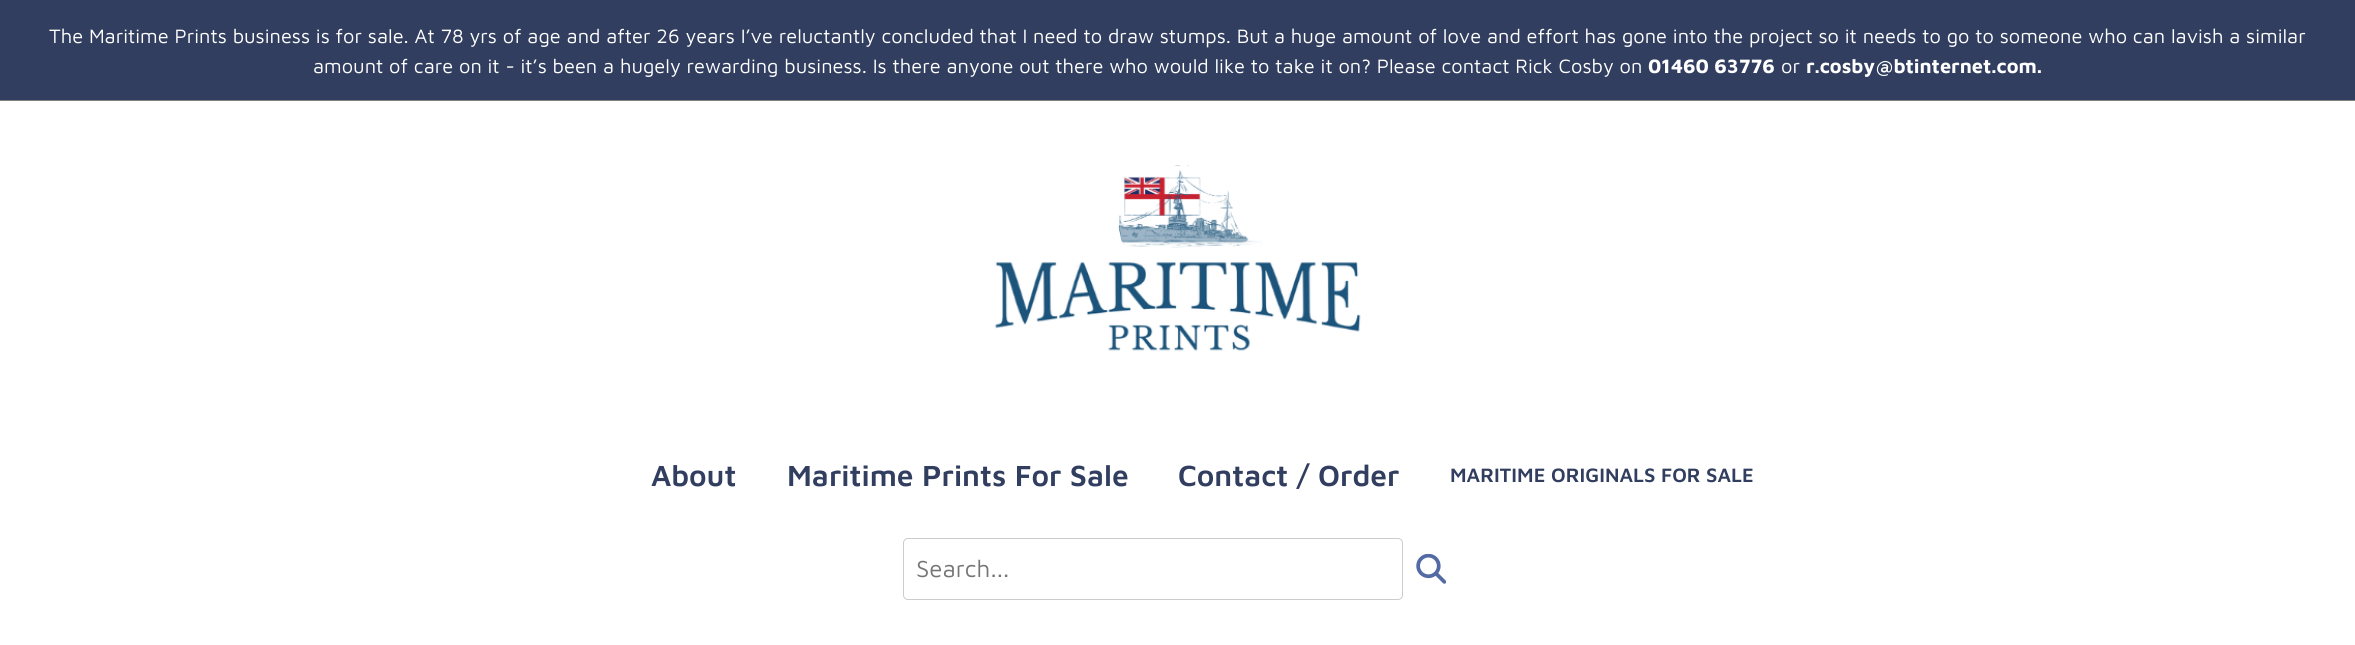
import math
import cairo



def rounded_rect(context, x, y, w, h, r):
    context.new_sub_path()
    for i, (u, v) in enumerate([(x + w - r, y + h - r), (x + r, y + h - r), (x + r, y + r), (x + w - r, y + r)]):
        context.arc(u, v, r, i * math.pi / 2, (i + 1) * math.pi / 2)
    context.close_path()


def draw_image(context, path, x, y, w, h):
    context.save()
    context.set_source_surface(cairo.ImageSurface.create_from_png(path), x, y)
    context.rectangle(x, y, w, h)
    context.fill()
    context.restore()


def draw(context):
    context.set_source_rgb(49 / 255, 62 / 255, 95 / 255)
    context.paint()
    context.set_source_rgb(128 / 255, 128 / 255, 128 / 255)
    context.rectangle(0, 100, 2355, 1)
    context.fill()
    context.set_source_rgb(1, 1, 1)
    context.rectangle(0, 101, 2355, 544)
    context.fill()
    draw_image(context, "images/1.png", 994, 165, 367, 186)
    rounded_rect(context, 903.5, 538.5, 499, 61, 4.5)
    context.set_source_rgb(204 / 255, 204 / 255, 204 / 255)
    context.set_line_width(1)
    context.stroke()
    draw_image(context, "images/2.png", 1416, 554, 30, 30)
    context.select_font_face("Maven Pro")
    context.set_font_size(20)
    context.set_source_rgb(1, 1, 1)
    context.move_to(49, 43)
    context.show_text("The Maritime Prints business is for sale. At 78 yrs of age and after 26 years I’ve reluctantly concluded that I need to draw stumps. But a huge amount of love and effort has gone into the project so it needs to go to someone who can lavish a similar")
    context.move_to(313, 73)
    context.show_text("amount of care on it - it’s been a hugely rewarding business. Is there anyone out there who would like to take it on? Please contact Rick Cosby on")
    context.select_font_face("Maven Pro", cairo.FontSlant.NORMAL, cairo.FontWeight.BOLD)
    context.move_to(1648, 73)
    context.show_text("01460 63776")
    context.select_font_face("Maven Pro")
    context.move_to(1781, 73)
    context.show_text("or")
    context.select_font_face("Maven Pro", cairo.FontSlant.NORMAL, cairo.FontWeight.BOLD)
    context.move_to(1806, 73)
    context.show_text("r.cosby@btinternet.com.")
    context.select_font_face("Maven Pro SemiBold")
    context.set_font_size(30)
    context.set_source_rgb(49 / 255, 62 / 255, 95 / 255)
    context.move_to(651, 486)
    context.show_text("About")
    context.move_to(787, 486)
    context.show_text("Maritime Prints For Sale")
    context.move_to(1178, 486)
    context.show_text("Contact / Order")
    context.set_font_size(20)
    context.move_to(1450, 482)
    context.show_text("MARITIME ORIGINALS FOR SALE")
    context.select_font_face("Maven Pro")
    context.set_font_size(24)
    context.set_source_rgb(117 / 255, 117 / 255, 117 / 255)
    context.move_to(916, 577)
    context.show_text("Search...")


surface = cairo.ImageSurface(cairo.Format.RGB24, 2355, 645)
context = cairo.Context(surface)
options = cairo.FontOptions()
options.set_hint_metrics(cairo.HintMetrics.OFF)
options.set_hint_style(cairo.HintStyle.NONE)
context.set_font_options(options)
context.set_miter_limit(4)
draw(context)
surface.write_to_png("out.png")
